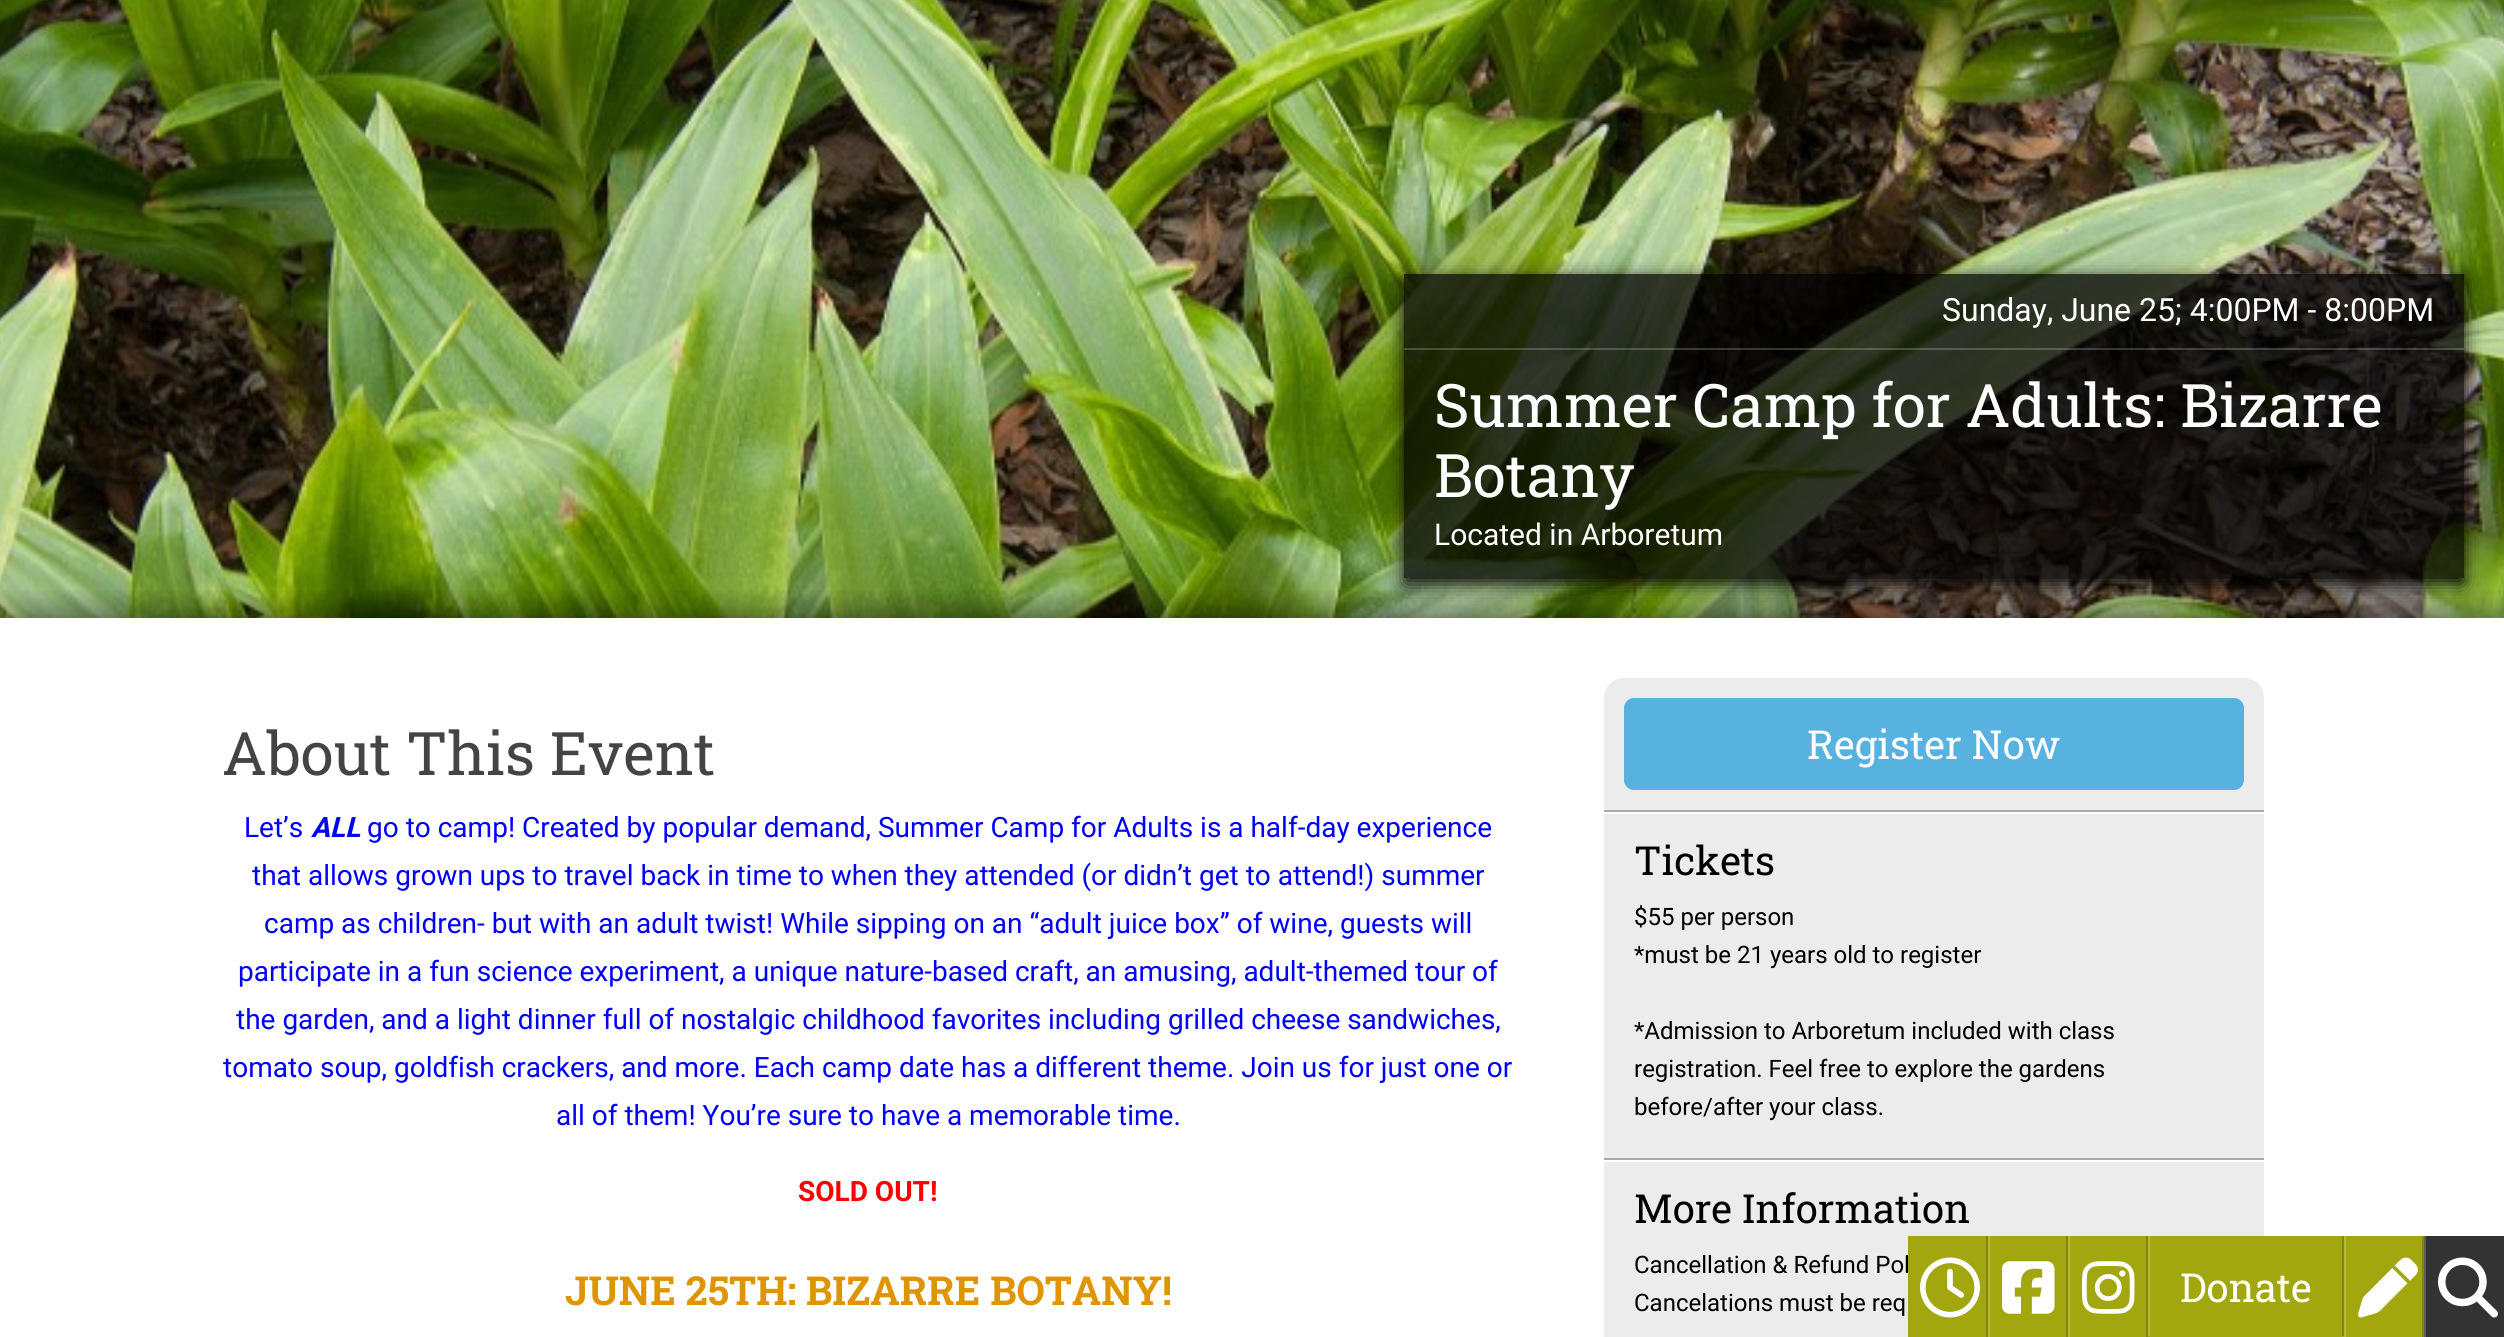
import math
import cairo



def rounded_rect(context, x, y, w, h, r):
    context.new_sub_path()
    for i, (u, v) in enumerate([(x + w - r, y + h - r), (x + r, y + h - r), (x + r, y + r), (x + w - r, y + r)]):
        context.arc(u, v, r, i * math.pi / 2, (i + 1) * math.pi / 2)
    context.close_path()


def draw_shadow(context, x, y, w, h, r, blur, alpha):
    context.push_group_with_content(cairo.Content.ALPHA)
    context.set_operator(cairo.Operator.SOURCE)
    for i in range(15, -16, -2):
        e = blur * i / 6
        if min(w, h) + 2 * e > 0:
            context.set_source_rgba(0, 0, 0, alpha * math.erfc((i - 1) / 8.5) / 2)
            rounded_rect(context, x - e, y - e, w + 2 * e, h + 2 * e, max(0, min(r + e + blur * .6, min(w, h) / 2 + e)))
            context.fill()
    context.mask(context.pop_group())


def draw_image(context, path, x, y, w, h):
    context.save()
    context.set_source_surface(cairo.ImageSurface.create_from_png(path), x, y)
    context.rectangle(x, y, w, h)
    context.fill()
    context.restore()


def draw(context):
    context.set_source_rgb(1, 1, 1)
    context.paint()
    draw_image(context, "images/1.png", 0, 0, 2504, 618)
    context.save()
    context.set_fill_rule(cairo.FillRule.EVEN_ODD)
    context.new_path()
    context.move_to(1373, 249)
    context.line_to(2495, 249)
    context.line_to(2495, 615)
    context.line_to(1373, 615)
    context.close_path()
    context.move_to(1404, 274)
    context.line_to(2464, 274)
    context.line_to(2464, 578)
    context.line_to(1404, 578)
    context.close_path()
    context.clip()
    context.set_source_rgb(0, 0, 0)
    draw_shadow(context, 1404, 280, 1060, 304, 0, 10, 1)
    context.restore()
    context.set_source_rgba(0, 0, 0, 0.75)
    context.rectangle(1404, 274, 1060, 304)
    context.fill()
    context.set_source_rgba(1, 1, 1, 0.2)
    context.rectangle(1404, 348, 1060, 2)
    context.fill()
    draw_image(context, "images/2.png", 0, 590, 2504, 28)
    context.set_source_rgb(236 / 255, 236 / 255, 236 / 255)
    rounded_rect(context, 1604, 678, 660, 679, 20)
    context.fill()
    context.set_source_rgb(170 / 255, 170 / 255, 170 / 255)
    context.rectangle(1604, 810, 660, 2)
    context.fill()
    context.set_source_rgb(87 / 255, 178 / 255, 224 / 255)
    rounded_rect(context, 1624, 698, 620, 92, 10)
    context.fill()
    context.set_source_rgb(170 / 255, 170 / 255, 170 / 255)
    context.rectangle(1604, 1158, 660, 2)
    context.fill()
    context.set_source_rgb(1, 1, 1)
    context.rectangle(1604, 812, 660, 2)
    context.fill()
    context.rectangle(1604, 1160, 660, 2)
    context.fill()
    context.set_source_rgb(130 / 255, 134 / 255, 12 / 255)
    context.rectangle(2422, 1236, 2, 101)
    context.fill()
    context.set_source_rgb(51 / 255, 51 / 255, 51 / 255)
    context.rectangle(2426, 1236, 78, 101)
    context.fill()
    context.set_source_rgb(92 / 255, 92 / 255, 92 / 255)
    context.rectangle(2424, 1236, 2, 101)
    context.fill()
    draw_image(context, "images/7.png", 2438, 1257, 60, 61)
    context.select_font_face("Roboto")
    context.set_font_size(32)
    context.set_source_rgb(1, 1, 1)
    context.move_to(1942, 321)
    context.show_text("Sunday, June 25; 4:00PM - 8:00PM")
    context.select_font_face("Roboto Slab")
    context.set_font_size(60)
    context.move_to(1434, 427)
    context.show_text("Summer Camp for Adults: Bizarre")
    context.move_to(1434, 497)
    context.show_text("Botany")
    context.select_font_face("Roboto")
    context.set_font_size(30)
    context.move_to(1434, 545)
    context.show_text("Located in Arboretum")
    context.select_font_face("Roboto Slab")
    context.set_font_size(60)
    context.set_source_rgb(68 / 255, 68 / 255, 68 / 255)
    context.move_to(222, 775)
    context.show_text("About This Event")
    context.select_font_face("Roboto")
    context.set_font_size(28)
    context.set_source_rgb(0, 0, 1)
    context.move_to(244, 837)
    context.show_text("Let’s")
    context.select_font_face("Roboto", cairo.FontSlant.ITALIC, cairo.FontWeight.BOLD)
    context.move_to(311, 837)
    context.show_text("ALL")
    context.select_font_face("Roboto")
    context.move_to(367, 837)
    context.show_text("go to camp! Created by popular demand, Summer Camp for Adults is a half-day experience")
    context.move_to(252, 885)
    context.show_text("that allows grown ups to travel back in time to when they attended (or didn’t get to attend!) summer")
    context.move_to(264, 933)
    context.show_text("camp as children- but with an adult twist! While sipping on an “adult juice box” of wine, guests will")
    context.move_to(238, 981)
    context.show_text("participate in a fun science experiment, a unique nature-based craft, an amusing, adult-themed tour of")
    context.move_to(236, 1029)
    context.show_text("the garden, and a light dinner full of nostalgic childhood favorites including grilled cheese sandwiches,")
    context.move_to(223, 1077)
    context.show_text("tomato soup, goldfish crackers, and more. Each camp date has a different theme. Join us for just one or")
    context.move_to(556, 1125)
    context.show_text("all of them! You’re sure to have a memorable time.")
    context.select_font_face("Roboto", cairo.FontSlant.NORMAL, cairo.FontWeight.BOLD)
    context.set_source_rgb(1, 0, 0)
    context.move_to(798, 1201)
    context.show_text("SOLD OUT!")
    context.select_font_face("Roboto Slab", cairo.FontSlant.NORMAL, cairo.FontWeight.BOLD)
    context.set_font_size(40)
    context.set_source_rgb(222 / 255, 149 / 255, 0)
    context.move_to(565, 1305)
    context.show_text("JUNE 25TH: BIZARRE BOTANY!")
    context.select_font_face("Roboto Slab")
    context.set_source_rgb(1, 1, 1)
    context.move_to(1807, 759)
    context.show_text("Register Now")
    context.set_source_rgb(0, 0, 0)
    context.move_to(1634, 875)
    context.show_text("Tickets")
    context.select_font_face("Roboto")
    context.set_font_size(24)
    context.move_to(1634, 925)
    context.show_text("$55 per person")
    context.move_to(1634, 963)
    context.show_text("*must be 21 years old to register")
    context.move_to(1634, 1039)
    context.show_text("*Admission to Arboretum included with class")
    context.move_to(1634, 1077)
    context.show_text("registration. Feel free to explore the gardens")
    context.move_to(1634, 1115)
    context.show_text("before/after your class.")
    context.select_font_face("Roboto Slab")
    context.set_font_size(40)
    context.move_to(1634, 1223)
    context.show_text("More Information")
    context.select_font_face("Roboto")
    context.set_font_size(24)
    context.move_to(1634, 1273)
    context.show_text("Cancellation & Refund Pol")
    context.move_to(1634, 1311)
    context.show_text("Cancelations must be req")
    context.set_source_rgb(163 / 255, 167 / 255, 15 / 255)
    context.rectangle(1908, 1236, 514, 101)
    context.fill()
    context.set_source_rgb(130 / 255, 134 / 255, 12 / 255)
    context.rectangle(1986, 1236, 2, 101)
    context.fill()
    draw_image(context, "images/3.png", 1920, 1257, 60, 61)
    context.rectangle(2066, 1236, 2, 101)
    context.fill()
    context.set_source_rgb(181 / 255, 185 / 255, 63 / 255)
    context.rectangle(1988, 1236, 2, 101)
    context.fill()
    draw_image(context, "images/4.png", 2002, 1261, 53, 53)
    context.set_source_rgb(130 / 255, 134 / 255, 12 / 255)
    context.rectangle(2146, 1236, 2, 101)
    context.fill()
    context.set_source_rgb(181 / 255, 185 / 255, 63 / 255)
    context.rectangle(2068, 1236, 2, 101)
    context.fill()
    draw_image(context, "images/5.png", 2082, 1261, 53, 53)
    context.set_source_rgb(130 / 255, 134 / 255, 12 / 255)
    context.rectangle(2342, 1236, 2, 100)
    context.fill()
    context.set_source_rgb(181 / 255, 185 / 255, 63 / 255)
    context.rectangle(2148, 1236, 2, 100)
    context.fill()
    context.select_font_face("Roboto Slab")
    context.set_font_size(40)
    context.set_source_rgb(1, 1, 1)
    context.move_to(2180, 1302)
    context.show_text("Donate")
    context.set_source_rgb(181 / 255, 185 / 255, 63 / 255)
    context.rectangle(2344, 1236, 2, 101)
    context.fill()
    draw_image(context, "images/6.png", 2358, 1257, 60, 61)


surface = cairo.ImageSurface(cairo.Format.RGB24, 2504, 1337)
context = cairo.Context(surface)
options = cairo.FontOptions()
options.set_hint_metrics(cairo.HintMetrics.OFF)
options.set_hint_style(cairo.HintStyle.NONE)
context.set_font_options(options)
context.set_miter_limit(4)
draw(context)
surface.write_to_png("out.png")
